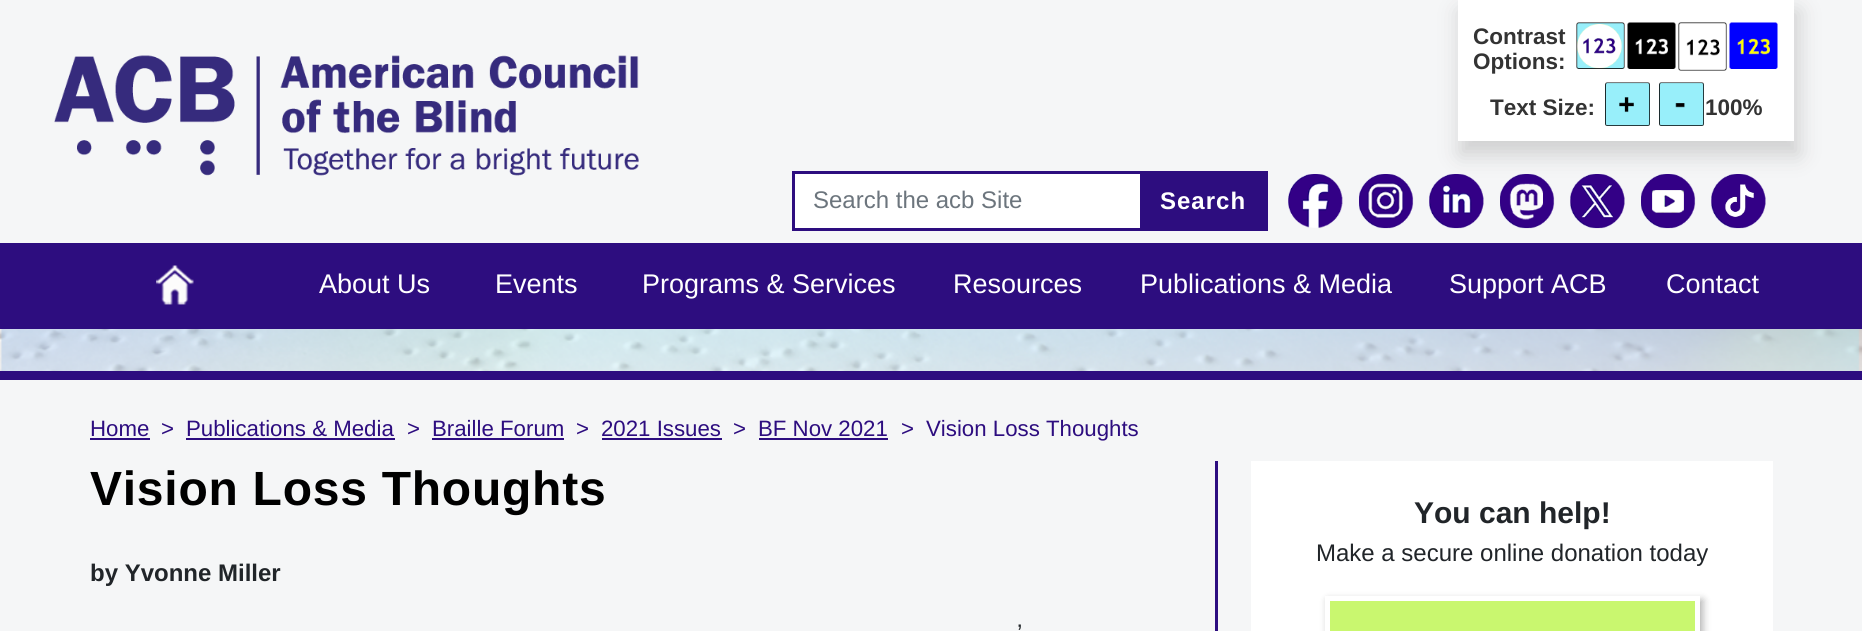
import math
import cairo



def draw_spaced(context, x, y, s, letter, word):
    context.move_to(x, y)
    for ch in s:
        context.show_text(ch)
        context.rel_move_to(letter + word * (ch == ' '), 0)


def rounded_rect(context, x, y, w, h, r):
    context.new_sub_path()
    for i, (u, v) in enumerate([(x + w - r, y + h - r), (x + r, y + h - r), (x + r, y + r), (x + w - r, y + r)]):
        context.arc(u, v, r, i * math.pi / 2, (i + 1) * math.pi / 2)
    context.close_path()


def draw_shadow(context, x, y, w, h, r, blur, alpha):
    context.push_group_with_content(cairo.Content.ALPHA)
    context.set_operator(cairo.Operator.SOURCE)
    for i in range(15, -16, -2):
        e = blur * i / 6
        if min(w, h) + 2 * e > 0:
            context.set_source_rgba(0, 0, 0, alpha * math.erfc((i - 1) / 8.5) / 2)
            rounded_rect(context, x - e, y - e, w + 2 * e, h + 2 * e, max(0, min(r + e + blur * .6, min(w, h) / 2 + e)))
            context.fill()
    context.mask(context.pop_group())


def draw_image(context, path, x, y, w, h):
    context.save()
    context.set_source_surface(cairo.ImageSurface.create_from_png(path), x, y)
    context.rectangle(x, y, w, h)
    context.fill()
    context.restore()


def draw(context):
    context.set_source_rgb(245 / 255, 246 / 255, 247 / 255)
    context.paint()
    draw_image(context, "images/1.png", 54, 55, 585, 121)
    context.set_source_rgb(179 / 255, 179 / 255, 179 / 255)
    draw_shadow(context, 1460, 11, 339, 144, 0, 10.5, 0.57)
    context.set_source_rgb(1, 1, 1)
    context.rectangle(1458, 0, 336, 141)
    context.fill()
    draw_image(context, "images/2.png", 1576, 22, 49, 47)
    draw_image(context, "images/3.png", 1627, 22, 49, 47)
    draw_image(context, "images/4.png", 1678, 22, 49, 49)
    draw_image(context, "images/5.png", 1729, 22, 49, 47)
    draw_image(context, "images/6.png", 1605, 82, 45, 44)
    draw_image(context, "images/7.png", 1659, 82, 45, 44)
    context.rectangle(795, 174, 345, 54)
    context.fill()
    context.rectangle(793.5, 172.5, 473, 57)
    context.set_source_rgb(45 / 255, 13 / 255, 127 / 255)
    context.set_line_width(3)
    context.stroke()
    context.rectangle(1140, 174, 125, 54)
    context.fill()
    draw_image(context, "images/8.png", 1288, 174, 55, 55)
    draw_image(context, "images/9.png", 1359, 174, 55, 55)
    draw_image(context, "images/10.png", 1429, 174, 55, 55)
    draw_image(context, "images/11.png", 1500, 174, 55, 55)
    draw_image(context, "images/12.png", 1570, 174, 55, 55)
    draw_image(context, "images/13.png", 1641, 174, 55, 55)
    draw_image(context, "images/14.png", 1711, 174, 55, 55)
    context.rectangle(0, 243, 1862, 86)
    context.fill()
    draw_image(context, "images/15.png", 156, 265, 38, 40)
    draw_image(context, "images/16.png", 0, 329, 1862, 42)
    context.rectangle(0, 371, 1862, 9)
    context.fill()
    context.rectangle(90, 438, 60, 2)
    context.fill()
    context.rectangle(186, 438, 209, 2)
    context.fill()
    context.rectangle(432, 438, 132, 2)
    context.fill()
    context.rectangle(602, 438, 120, 2)
    context.fill()
    context.rectangle(759, 438, 129, 2)
    context.fill()
    context.set_source_rgb(45 / 255, 13 / 255, 128 / 255)
    context.rectangle(1215, 461, 3, 170)
    context.fill()
    context.set_source_rgb(1, 1, 1)
    context.rectangle(1251, 461, 522, 170)
    context.fill()
    context.set_source_rgb(2 / 255, 2 / 255, 2 / 255)
    draw_shadow(context, 1328, 600, 375, 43, 0, 4, 0.3)
    context.set_source_rgb(201 / 255, 247 / 255, 111 / 255)
    context.rectangle(1327.5, 598.5, 370, 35)
    context.fill_preserve()
    context.set_source_rgb(1, 1, 1)
    context.set_line_width(5)
    context.stroke()
    context.select_font_face("Liberation Sans", cairo.FontSlant.NORMAL, cairo.FontWeight.BOLD)
    context.set_font_size(22.5)
    context.set_source_rgb(51 / 255, 51 / 255, 51 / 255)
    context.move_to(1473, 44)
    context.show_text("Contrast")
    context.move_to(1473, 69)
    context.show_text("Options:")
    context.move_to(1490, 115)
    context.show_text("Text Size:")
    context.move_to(1705, 115)
    context.show_text("100%")
    context.select_font_face("Liberation Sans")
    context.set_font_size(24)
    context.set_source_rgb(108 / 255, 117 / 255, 125 / 255)
    context.move_to(813, 208)
    context.show_text("Search the acb Site")
    context.select_font_face("Liberation Sans", cairo.FontSlant.NORMAL, cairo.FontWeight.BOLD)
    context.set_source_rgb(1, 1, 1)
    draw_spaced(context, 1160, 209, "Search", 1, 0)
    context.select_font_face("Liberation Sans")
    context.set_font_size(27)
    context.move_to(319, 293)
    context.show_text("About Us")
    context.move_to(495, 293)
    context.show_text("Events")
    context.move_to(642, 293)
    context.show_text("Programs & Services")
    context.move_to(953, 293)
    context.show_text("Resources")
    context.move_to(1140, 293)
    context.show_text("Publications & Media")
    context.move_to(1449, 293)
    context.show_text("Support ACB")
    context.move_to(1666, 293)
    context.show_text("Contact")
    context.set_font_size(22.25)
    context.set_source_rgb(45 / 255, 13 / 255, 127 / 255)
    context.move_to(90, 436)
    context.show_text("Home")
    context.move_to(161, 436)
    context.show_text(">")
    context.move_to(186, 436)
    context.show_text("Publications & Media")
    context.move_to(407, 436)
    context.show_text(">")
    context.move_to(432, 436)
    context.show_text("Braille Forum")
    context.move_to(576, 436)
    context.show_text(">")
    context.move_to(601, 436)
    context.show_text("2021 Issues")
    context.move_to(733, 436)
    context.show_text(">")
    context.move_to(758, 436)
    context.show_text("BF Nov 2021")
    context.move_to(901, 436)
    context.show_text(">")
    context.move_to(926, 436)
    context.show_text("Vision Loss Thoughts")
    context.select_font_face("Liberation Sans", cairo.FontSlant.NORMAL, cairo.FontWeight.BOLD)
    context.set_font_size(48)
    context.set_source_rgb(0, 0, 0)
    draw_spaced(context, 90, 505, "Vision Loss Thoughts", 0.75, 0)
    context.set_font_size(24)
    context.set_source_rgb(33 / 255, 37 / 255, 41 / 255)
    context.move_to(90, 581)
    context.show_text("by Yvonne Miller")
    context.select_font_face("Liberation Sans")
    context.move_to(1017, 641)
    context.show_text("’")
    context.select_font_face("Liberation Sans", cairo.FontSlant.NORMAL, cairo.FontWeight.BOLD)
    context.set_font_size(30)
    context.move_to(1414, 523)
    context.show_text("You can help!")
    context.select_font_face("Liberation Sans")
    context.set_font_size(24)
    context.move_to(1316, 561)
    context.show_text("Make a secure online donation today")


surface = cairo.ImageSurface(cairo.Format.RGB24, 1862, 631)
context = cairo.Context(surface)
options = cairo.FontOptions()
options.set_hint_metrics(cairo.HintMetrics.OFF)
options.set_hint_style(cairo.HintStyle.NONE)
context.set_font_options(options)
context.set_miter_limit(4)
draw(context)
surface.write_to_png("out.png")
